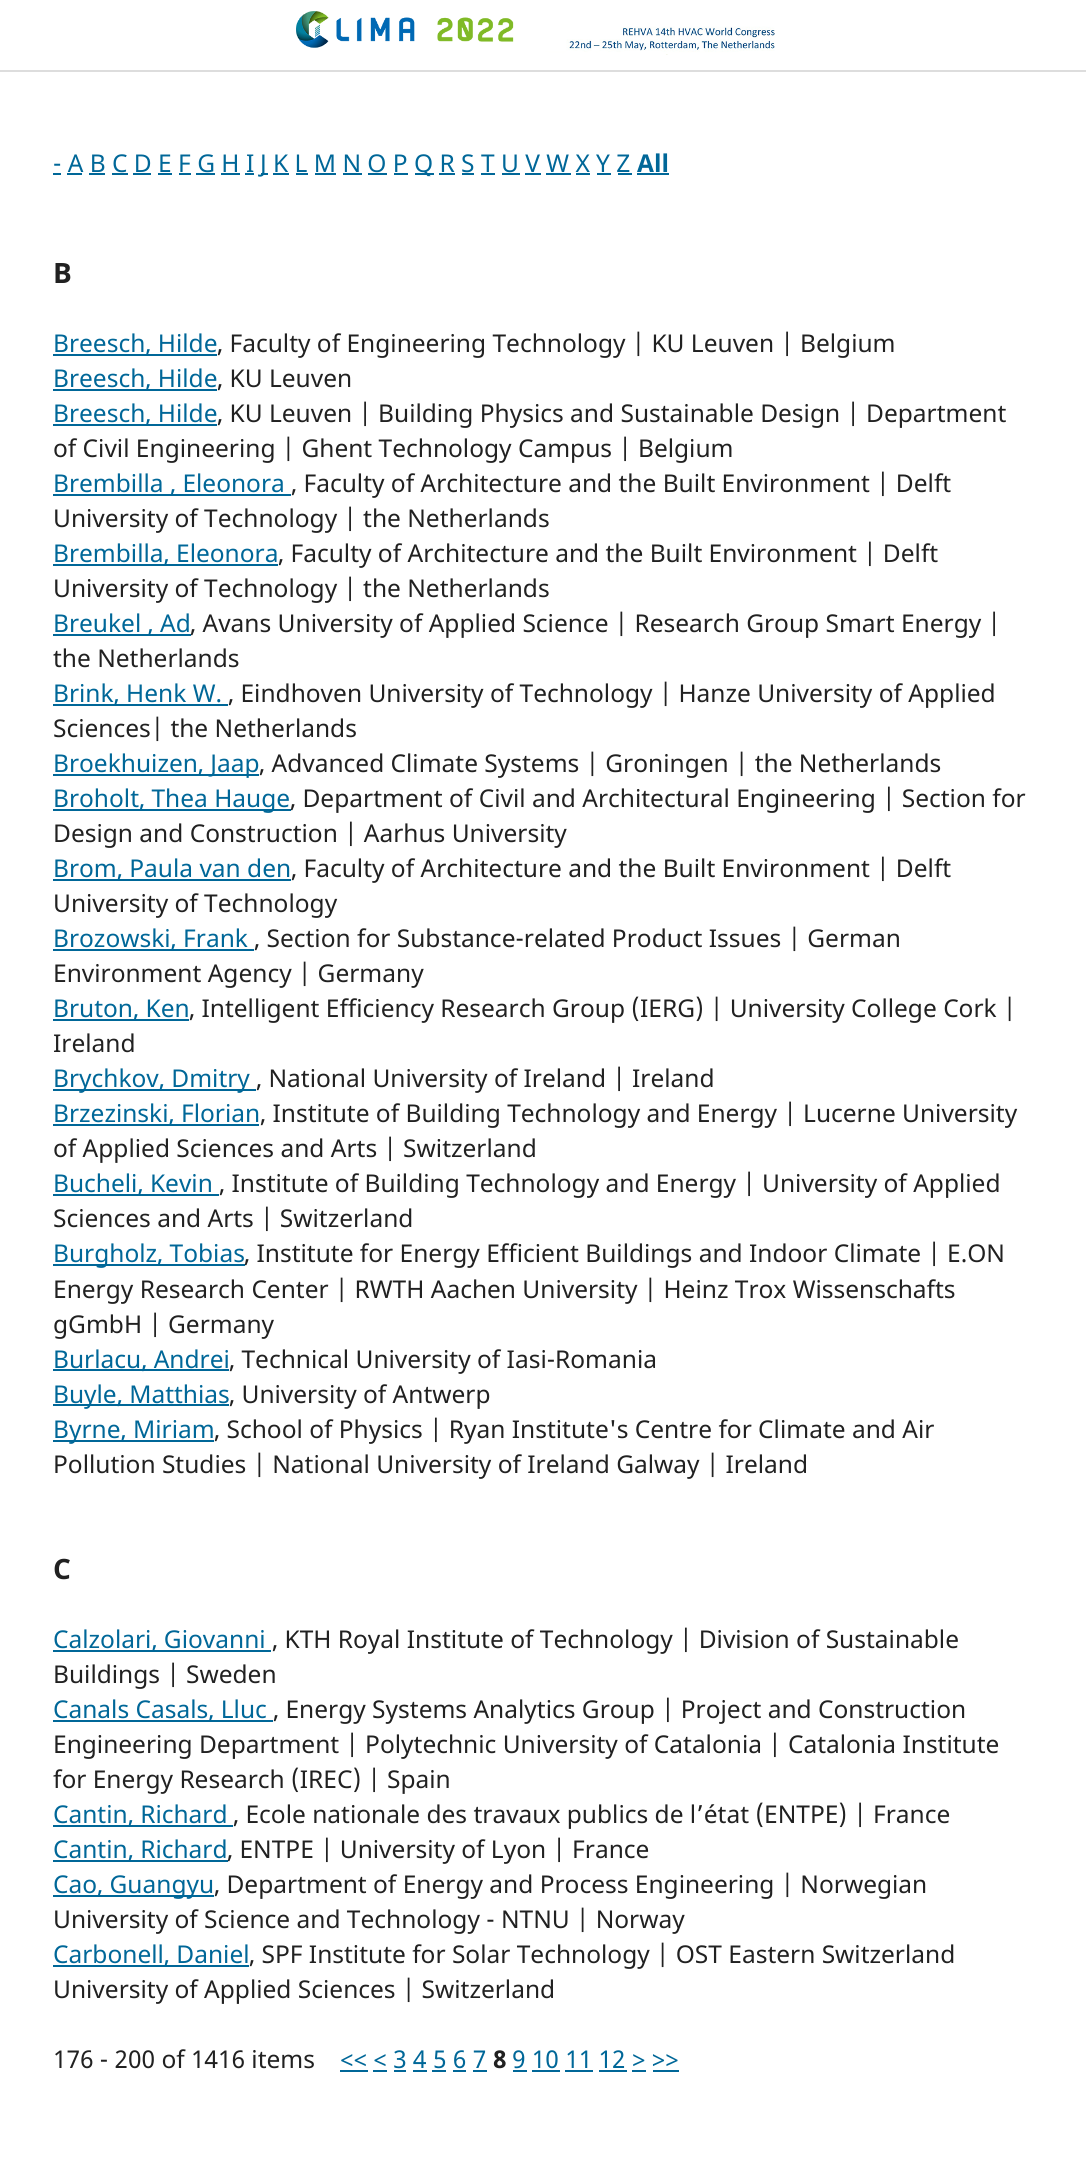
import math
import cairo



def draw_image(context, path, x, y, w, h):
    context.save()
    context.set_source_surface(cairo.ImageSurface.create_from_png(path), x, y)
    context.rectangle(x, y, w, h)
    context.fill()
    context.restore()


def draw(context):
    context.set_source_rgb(1, 1, 1)
    context.paint()
    draw_image(context, "images/1.png", 296, 11, 479, 44)
    context.set_source_rgb(221 / 255, 221 / 255, 221 / 255)
    context.rectangle(0, 70, 1086, 2)
    context.fill()
    context.set_source_rgb(0, 103 / 255, 152 / 255)
    context.rectangle(53, 173, 8, 2)
    context.fill()
    context.rectangle(261, 173, 7, 2)
    context.fill()
    context.rectangle(415, 173, 19, 2)
    context.fill()
    context.rectangle(637, 173, 32, 2)
    context.fill()
    context.rectangle(67, 173, 15, 2)
    context.fill()
    context.rectangle(89, 173, 16, 2)
    context.fill()
    context.rectangle(112, 173, 16, 2)
    context.fill()
    context.rectangle(133, 173, 18, 2)
    context.fill()
    context.rectangle(158, 173, 14, 2)
    context.fill()
    context.rectangle(179, 173, 12, 2)
    context.fill()
    context.rectangle(196, 173, 19, 2)
    context.fill()
    context.rectangle(221, 173, 19, 2)
    context.fill()
    context.rectangle(245, 173, 9, 2)
    context.fill()
    context.rectangle(273, 173, 16, 2)
    context.fill()
    context.rectangle(296, 173, 12, 2)
    context.fill()
    context.rectangle(315, 173, 21, 2)
    context.fill()
    context.rectangle(343, 173, 19, 2)
    context.fill()
    context.rectangle(368, 173, 19, 2)
    context.fill()
    context.rectangle(394, 173, 14, 2)
    context.fill()
    context.rectangle(439, 173, 16, 2)
    context.fill()
    context.rectangle(462, 173, 12, 2)
    context.fill()
    context.rectangle(481, 173, 14, 2)
    context.fill()
    context.rectangle(502, 173, 18, 2)
    context.fill()
    context.rectangle(525, 173, 16, 2)
    context.fill()
    context.rectangle(546, 173, 25, 2)
    context.fill()
    context.rectangle(576, 173, 14, 2)
    context.fill()
    context.rectangle(597, 173, 14, 2)
    context.fill()
    context.rectangle(618, 173, 14, 2)
    context.fill()
    context.rectangle(53, 354, 164, 2)
    context.fill()
    context.rectangle(53, 389, 164, 2)
    context.fill()
    context.rectangle(53, 424, 164, 2)
    context.fill()
    context.rectangle(53, 494, 238, 2)
    context.fill()
    context.rectangle(53, 564, 225, 2)
    context.fill()
    context.rectangle(53, 634, 138, 2)
    context.fill()
    context.rectangle(53, 704, 175, 2)
    context.fill()
    context.rectangle(53, 774, 206, 2)
    context.fill()
    context.rectangle(53, 809, 238, 2)
    context.fill()
    context.rectangle(53, 879, 238, 2)
    context.fill()
    context.rectangle(53, 949, 201, 2)
    context.fill()
    context.rectangle(53, 1019, 136, 2)
    context.fill()
    context.rectangle(53, 1089, 203, 2)
    context.fill()
    context.rectangle(53, 1124, 206, 2)
    context.fill()
    context.rectangle(53, 1194, 166, 2)
    context.fill()
    context.rectangle(53, 1264, 192, 2)
    context.fill()
    context.rectangle(53, 1369, 176, 2)
    context.fill()
    context.rectangle(53, 1404, 176, 2)
    context.fill()
    context.rectangle(53, 1440, 161, 2)
    context.fill()
    context.rectangle(53, 1650, 218, 2)
    context.fill()
    context.rectangle(53, 1720, 220, 2)
    context.fill()
    context.rectangle(53, 1825, 180, 2)
    context.fill()
    context.rectangle(53, 1860, 175, 2)
    context.fill()
    context.rectangle(53, 1895, 161, 2)
    context.fill()
    context.rectangle(53, 1965, 196, 2)
    context.fill()
    context.rectangle(340, 2070, 28, 2)
    context.fill()
    context.rectangle(513, 2070, 14, 2)
    context.fill()
    context.rectangle(373, 2070, 14, 2)
    context.fill()
    context.rectangle(394, 2070, 12, 2)
    context.fill()
    context.rectangle(413, 2070, 14, 2)
    context.fill()
    context.rectangle(432, 2070, 14, 2)
    context.fill()
    context.rectangle(453, 2070, 13, 2)
    context.fill()
    context.rectangle(473, 2070, 14, 2)
    context.fill()
    context.rectangle(532, 2070, 28, 2)
    context.fill()
    context.rectangle(565, 2070, 28, 2)
    context.fill()
    context.rectangle(599, 2070, 28, 2)
    context.fill()
    context.rectangle(632, 2070, 14, 2)
    context.fill()
    context.rectangle(653, 2070, 26, 2)
    context.fill()
    context.select_font_face("Noto Sans")
    context.set_font_size(24.5)
    context.move_to(53, 172)
    context.show_text("- A B C D E F G H I")
    context.move_to(260, 172)
    context.show_text("J K L M N O P")
    context.move_to(414, 172)
    context.show_text("Q R S T U V W X Y Z")
    context.select_font_face("Noto Sans", cairo.FontSlant.NORMAL, cairo.FontWeight.BOLD)
    context.move_to(637, 172)
    context.show_text("All")
    context.set_font_size(28)
    context.set_source_rgb(33 / 255, 33 / 255, 33 / 255)
    context.move_to(53, 283)
    context.show_text("B")
    context.select_font_face("Noto Sans")
    context.set_font_size(24.5)
    context.set_source_rgb(0, 103 / 255, 152 / 255)
    context.move_to(53, 352)
    context.show_text("Breesch, Hilde")
    context.set_source_rgb(33 / 255, 33 / 255, 33 / 255)
    context.move_to(217, 352)
    context.show_text(", Faculty of Engineering Technology | KU Leuven | Belgium")
    context.set_source_rgb(0, 103 / 255, 152 / 255)
    context.move_to(53, 387)
    context.show_text("Breesch, Hilde")
    context.set_source_rgb(33 / 255, 33 / 255, 33 / 255)
    context.move_to(217, 387)
    context.show_text(", KU Leuven")
    context.set_source_rgb(0, 103 / 255, 152 / 255)
    context.move_to(53, 422)
    context.show_text("Breesch, Hilde")
    context.set_source_rgb(33 / 255, 33 / 255, 33 / 255)
    context.move_to(217, 422)
    context.show_text(", KU Leuven | Building Physics and Sustainable Design | Department")
    context.move_to(53, 457)
    context.show_text("of Civil Engineering | Ghent Technology Campus | Belgium")
    context.set_source_rgb(0, 103 / 255, 152 / 255)
    context.move_to(53, 492)
    context.show_text("Brembilla , Eleonora")
    context.set_source_rgb(33 / 255, 33 / 255, 33 / 255)
    context.move_to(291, 492)
    context.show_text(", Faculty of Architecture and the Built Environment | Delft")
    context.move_to(53, 527)
    context.show_text("University of Technology | the Netherlands")
    context.set_source_rgb(0, 103 / 255, 152 / 255)
    context.move_to(53, 562)
    context.show_text("Brembilla, Eleonora")
    context.set_source_rgb(33 / 255, 33 / 255, 33 / 255)
    context.move_to(278, 562)
    context.show_text(", Faculty of Architecture and the Built Environment | Delft")
    context.move_to(53, 597)
    context.show_text("University of Technology | the Netherlands")
    context.set_source_rgb(0, 103 / 255, 152 / 255)
    context.move_to(53, 632)
    context.show_text("Breukel , Ad")
    context.set_source_rgb(33 / 255, 33 / 255, 33 / 255)
    context.move_to(190, 632)
    context.show_text(", Avans University of Applied Science | Research Group Smart Energy |")
    context.move_to(53, 667)
    context.show_text("the Netherlands")
    context.set_source_rgb(0, 103 / 255, 152 / 255)
    context.move_to(53, 702)
    context.show_text("Brink, Henk W.")
    context.set_source_rgb(33 / 255, 33 / 255, 33 / 255)
    context.move_to(228, 702)
    context.show_text(", Eindhoven University of Technology | Hanze University of Applied")
    context.move_to(53, 737)
    context.show_text("Sciences| the Netherlands")
    context.set_source_rgb(0, 103 / 255, 152 / 255)
    context.move_to(53, 772)
    context.show_text("Broekhuizen, Jaap")
    context.set_source_rgb(33 / 255, 33 / 255, 33 / 255)
    context.move_to(259, 772)
    context.show_text(", Advanced Climate Systems | Groningen | the Netherlands")
    context.set_source_rgb(0, 103 / 255, 152 / 255)
    context.move_to(53, 807)
    context.show_text("Broholt, Thea Hauge")
    context.set_source_rgb(33 / 255, 33 / 255, 33 / 255)
    context.move_to(290, 807)
    context.show_text(", Department of Civil and Architectural Engineering | Section for")
    context.move_to(53, 842)
    context.show_text("Design and Construction | Aarhus University")
    context.set_source_rgb(0, 103 / 255, 152 / 255)
    context.move_to(53, 877)
    context.show_text("Brom, Paula van den")
    context.set_source_rgb(33 / 255, 33 / 255, 33 / 255)
    context.move_to(291, 877)
    context.show_text(", Faculty of Architecture and the Built Environment | Delft")
    context.move_to(53, 912)
    context.show_text("University of Technology")
    context.set_source_rgb(0, 103 / 255, 152 / 255)
    context.move_to(53, 947)
    context.show_text("Brozowski, Frank")
    context.set_source_rgb(33 / 255, 33 / 255, 33 / 255)
    context.move_to(254, 947)
    context.show_text(", Section for Substance-related Product Issues | German")
    context.move_to(53, 982)
    context.show_text("Environment Agency | Germany")
    context.set_source_rgb(0, 103 / 255, 152 / 255)
    context.move_to(53, 1017)
    context.show_text("Bruton, Ken")
    context.set_source_rgb(33 / 255, 33 / 255, 33 / 255)
    context.move_to(189, 1017)
    context.show_text(", Intelligent Efficiency Research Group (IERG) | University College Cork |")
    context.move_to(53, 1052)
    context.show_text("Ireland")
    context.set_source_rgb(0, 103 / 255, 152 / 255)
    context.move_to(53, 1087)
    context.show_text("Brychkov, Dmitry")
    context.set_source_rgb(33 / 255, 33 / 255, 33 / 255)
    context.move_to(256, 1087)
    context.show_text(", National University of Ireland | Ireland")
    context.set_source_rgb(0, 103 / 255, 152 / 255)
    context.move_to(53, 1122)
    context.show_text("Brzezinski, Florian")
    context.set_source_rgb(33 / 255, 33 / 255, 33 / 255)
    context.move_to(260, 1122)
    context.show_text(", Institute of Building Technology and Energy | Lucerne University")
    context.move_to(53, 1157)
    context.show_text("of Applied Sciences and Arts | Switzerland")
    context.set_source_rgb(0, 103 / 255, 152 / 255)
    context.move_to(53, 1192)
    context.show_text("Bucheli, Kevin")
    context.set_source_rgb(33 / 255, 33 / 255, 33 / 255)
    context.move_to(219, 1192)
    context.show_text(", Institute of Building Technology and Energy | University of Applied")
    context.move_to(53, 1227)
    context.show_text("Sciences and Arts | Switzerland")
    context.set_source_rgb(0, 103 / 255, 152 / 255)
    context.move_to(53, 1262)
    context.show_text("Burgholz, Tobias")
    context.set_source_rgb(33 / 255, 33 / 255, 33 / 255)
    context.move_to(244, 1262)
    context.show_text(", Institute for Energy Efficient Buildings and Indoor Climate | E.ON")
    context.move_to(53, 1298)
    context.show_text("Energy Research Center | RWTH Aachen University | Heinz Trox Wissenschafts")
    context.move_to(53, 1333)
    context.show_text("gGmbH | Germany")
    context.set_source_rgb(0, 103 / 255, 152 / 255)
    context.move_to(53, 1368)
    context.show_text("Burlacu, Andrei")
    context.set_source_rgb(33 / 255, 33 / 255, 33 / 255)
    context.move_to(229, 1368)
    context.show_text(", Technical University of Iasi-Romania")
    context.set_source_rgb(0, 103 / 255, 152 / 255)
    context.move_to(53, 1403)
    context.show_text("Buyle, Matthias")
    context.set_source_rgb(33 / 255, 33 / 255, 33 / 255)
    context.move_to(229, 1403)
    context.show_text(", University of Antwerp")
    context.set_source_rgb(0, 103 / 255, 152 / 255)
    context.move_to(53, 1438)
    context.show_text("Byrne, Miriam")
    context.set_source_rgb(33 / 255, 33 / 255, 33 / 255)
    context.move_to(214, 1438)
    context.show_text(", School of Physics | Ryan Institute's Centre for Climate and Air")
    context.move_to(53, 1473)
    context.show_text("Pollution Studies | National University of Ireland Galway | Ireland")
    context.select_font_face("Noto Sans", cairo.FontSlant.NORMAL, cairo.FontWeight.BOLD)
    context.set_font_size(28)
    context.move_to(53, 1579)
    context.show_text("C")
    context.select_font_face("Noto Sans")
    context.set_font_size(24.5)
    context.set_source_rgb(0, 103 / 255, 152 / 255)
    context.move_to(53, 1648)
    context.show_text("Calzolari, Giovanni")
    context.set_source_rgb(33 / 255, 33 / 255, 33 / 255)
    context.move_to(272, 1648)
    context.show_text(", KTH Royal Institute of Technology | Division of Sustainable")
    context.move_to(53, 1683)
    context.show_text("Buildings | Sweden")
    context.set_source_rgb(0, 103 / 255, 152 / 255)
    context.move_to(53, 1718)
    context.show_text("Canals Casals, Lluc")
    context.set_source_rgb(33 / 255, 33 / 255, 33 / 255)
    context.move_to(273, 1718)
    context.show_text(", Energy Systems Analytics Group | Project and Construction")
    context.move_to(53, 1753)
    context.show_text("Engineering Department | Polytechnic University of Catalonia | Catalonia Institute")
    context.move_to(53, 1788)
    context.show_text("for Energy Research (IREC) | Spain")
    context.set_source_rgb(0, 103 / 255, 152 / 255)
    context.move_to(53, 1823)
    context.show_text("Cantin, Richard")
    context.set_source_rgb(33 / 255, 33 / 255, 33 / 255)
    context.move_to(233, 1823)
    context.show_text(", Ecole nationale des travaux publics de l’état (ENTPE) | France")
    context.set_source_rgb(0, 103 / 255, 152 / 255)
    context.move_to(53, 1858)
    context.show_text("Cantin, Richard")
    context.set_source_rgb(33 / 255, 33 / 255, 33 / 255)
    context.move_to(227, 1858)
    context.show_text(", ENTPE | University of Lyon | France")
    context.set_source_rgb(0, 103 / 255, 152 / 255)
    context.move_to(53, 1893)
    context.show_text("Cao, Guangyu")
    context.set_source_rgb(33 / 255, 33 / 255, 33 / 255)
    context.move_to(214, 1893)
    context.show_text(", Department of Energy and Process Engineering | Norwegian")
    context.move_to(53, 1928)
    context.show_text("University of Science and Technology - NTNU | Norway")
    context.set_source_rgb(0, 103 / 255, 152 / 255)
    context.move_to(53, 1963)
    context.show_text("Carbonell, Daniel")
    context.set_source_rgb(33 / 255, 33 / 255, 33 / 255)
    context.move_to(249, 1963)
    context.show_text(", SPF Institute for Solar Technology | OST Eastern Switzerland")
    context.move_to(53, 1998)
    context.show_text("University of Applied Sciences | Switzerland")
    context.move_to(53, 2068)
    context.show_text("176 - 200 of 1416 items")
    context.set_source_rgb(0, 103 / 255, 152 / 255)
    context.move_to(340, 2068)
    context.show_text("<< < 3 4 5 6 7")
    context.select_font_face("Noto Sans", cairo.FontSlant.NORMAL, cairo.FontWeight.BOLD)
    context.set_source_rgb(33 / 255, 33 / 255, 33 / 255)
    context.move_to(493, 2068)
    context.show_text("8")
    context.select_font_face("Noto Sans")
    context.set_source_rgb(0, 103 / 255, 152 / 255)
    context.move_to(512, 2068)
    context.show_text("9 10 11 12 > >>")


surface = cairo.ImageSurface(cairo.Format.RGB24, 1086, 2161)
context = cairo.Context(surface)
options = cairo.FontOptions()
options.set_hint_metrics(cairo.HintMetrics.OFF)
options.set_hint_style(cairo.HintStyle.NONE)
context.set_font_options(options)
context.set_miter_limit(4)
draw(context)
surface.write_to_png("out.png")
